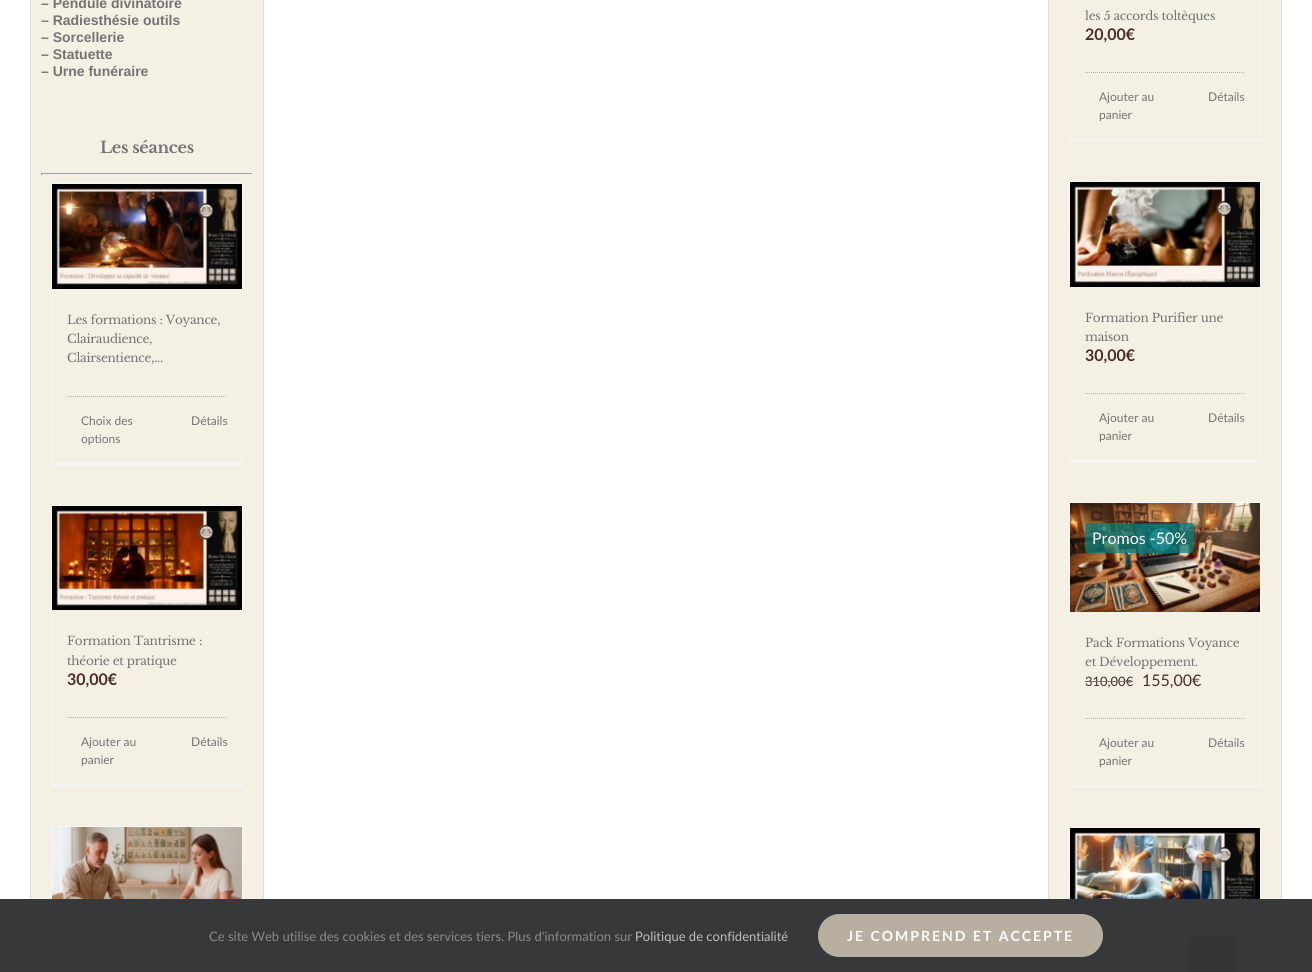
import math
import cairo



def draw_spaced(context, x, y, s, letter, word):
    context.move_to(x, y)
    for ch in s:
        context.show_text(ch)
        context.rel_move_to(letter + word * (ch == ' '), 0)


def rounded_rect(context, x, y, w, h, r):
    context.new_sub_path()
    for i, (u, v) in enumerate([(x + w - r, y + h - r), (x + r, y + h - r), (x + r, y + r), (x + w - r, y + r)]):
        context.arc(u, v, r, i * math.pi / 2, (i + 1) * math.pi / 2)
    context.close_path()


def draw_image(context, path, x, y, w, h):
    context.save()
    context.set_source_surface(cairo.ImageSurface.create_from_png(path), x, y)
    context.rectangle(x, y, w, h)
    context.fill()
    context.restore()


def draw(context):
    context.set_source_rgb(1, 1, 1)
    context.paint()
    context.set_source_rgb(245 / 255, 240 / 255, 228 / 255)
    context.rectangle(31, 0, 232, 899)
    context.fill()
    context.rectangle(30.5, -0.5, 233, 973)
    context.set_source_rgb(224 / 255, 222 / 255, 222 / 255)
    context.set_line_width(1)
    context.stroke()
    context.set_source_rgb(159 / 255, 159 / 255, 159 / 255)
    context.rectangle(41, 173, 212, 1)
    context.fill()
    context.set_source_rgb(238 / 255, 238 / 255, 238 / 255)
    context.rectangle(252, 173, 1, 2)
    context.fill()
    context.rectangle(41, 174, 212, 1)
    context.fill()
    context.set_source_rgb(159 / 255, 159 / 255, 159 / 255)
    context.rectangle(41, 173, 1, 2)
    context.fill()
    context.set_source_rgb(246 / 255, 246 / 255, 246 / 255)
    context.rectangle(51, 183, 192, 1)
    context.fill()
    context.rectangle(242, 183, 1, 282)
    context.fill()
    context.rectangle(51, 463, 192, 2)
    context.fill()
    context.rectangle(51, 183, 1, 282)
    context.fill()
    draw_image(context, "images/1.png", 52, 184, 190, 105)
    context.new_path()
    context.move_to(67, 396.5)
    context.line_to(227, 396.5)
    context.set_source_rgb(185 / 255, 175 / 255, 161 / 255)
    context.set_dash([1, 1])
    context.stroke()
    context.set_source_rgb(246 / 255, 246 / 255, 246 / 255)
    context.rectangle(51, 505, 192, 1)
    context.fill()
    context.rectangle(242, 505, 1, 281)
    context.fill()
    context.rectangle(51, 784, 192, 2)
    context.fill()
    context.rectangle(51, 505, 1, 281)
    context.fill()
    draw_image(context, "images/2.png", 52, 506, 190, 104)
    context.new_path()
    context.move_to(67, 717.5)
    context.line_to(227, 717.5)
    context.set_source_rgb(185 / 255, 175 / 255, 161 / 255)
    context.stroke()
    context.set_source_rgb(246 / 255, 246 / 255, 246 / 255)
    context.rectangle(51, 826, 192, 1)
    context.fill()
    context.rectangle(242, 826, 1, 73)
    context.fill()
    context.rectangle(51, 826, 1, 73)
    context.fill()
    draw_image(context, "images/3.png", 52, 827, 190, 72)
    context.set_source_rgb(245 / 255, 240 / 255, 228 / 255)
    context.rectangle(1049, 0, 232, 899)
    context.fill()
    context.rectangle(1048.5, -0.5, 233, 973)
    context.set_source_rgb(224 / 255, 222 / 255, 222 / 255)
    context.set_dash([])
    context.stroke()
    context.set_source_rgb(246 / 255, 246 / 255, 246 / 255)
    context.rectangle(1260, 0, 1, 141)
    context.fill()
    context.rectangle(1069, 139, 192, 2)
    context.fill()
    context.rectangle(1069, 0, 1, 141)
    context.fill()
    context.new_path()
    context.move_to(1085, 72.5)
    context.line_to(1245, 72.5)
    context.set_source_rgb(185 / 255, 175 / 255, 161 / 255)
    context.set_dash([1, 1])
    context.stroke()
    context.set_source_rgb(246 / 255, 246 / 255, 246 / 255)
    context.rectangle(1069, 181, 192, 1)
    context.fill()
    context.rectangle(1260, 181, 1, 281)
    context.fill()
    context.rectangle(1069, 460, 192, 2)
    context.fill()
    context.rectangle(1069, 181, 1, 281)
    context.fill()
    draw_image(context, "images/4.png", 1070, 182, 190, 105)
    context.new_path()
    context.move_to(1085, 393.5)
    context.line_to(1245, 393.5)
    context.set_source_rgb(185 / 255, 175 / 255, 161 / 255)
    context.stroke()
    context.set_source_rgb(246 / 255, 246 / 255, 246 / 255)
    context.rectangle(1069, 502, 192, 1)
    context.fill()
    context.rectangle(1260, 502, 1, 285)
    context.fill()
    context.rectangle(1069, 785, 192, 2)
    context.fill()
    context.rectangle(1069, 502, 1, 285)
    context.fill()
    draw_image(context, "images/5.png", 1070, 503, 190, 109)
    context.set_source_rgba(0, 128 / 255, 128 / 255, 0.7)
    rounded_rect(context, 1085, 523, 109, 30, 3)
    context.fill()
    context.new_path()
    context.move_to(1085, 718.5)
    context.line_to(1245, 718.5)
    context.set_source_rgb(185 / 255, 175 / 255, 161 / 255)
    context.stroke()
    context.set_source_rgb(246 / 255, 246 / 255, 246 / 255)
    context.rectangle(1069, 827, 192, 1)
    context.fill()
    context.rectangle(1260, 827, 1, 72)
    context.fill()
    context.rectangle(1069, 827, 1, 72)
    context.fill()
    draw_image(context, "images/6.png", 1070, 828, 190, 71)
    context.set_source_rgb(54 / 255, 56 / 255, 57 / 255)
    context.rectangle(0, 899, 1312, 73)
    context.fill()
    context.set_source_rgb(185 / 255, 175 / 255, 161 / 255)
    rounded_rect(context, 818, 914, 285, 43, 21.5)
    context.fill()
    context.set_source_rgb(51 / 255, 52 / 255, 52 / 255)
    context.new_path()
    context.move_to(1193, 937)
    context.line_to(1233, 937)
    context.curve_to(1235, 937, 1237, 939, 1237, 941)
    context.line_to(1237, 972)
    context.line_to(1189, 972)
    context.line_to(1189, 941)
    context.curve_to(1189, 939, 1191, 937, 1193, 937)
    context.close_path()
    context.fill()
    context.select_font_face("Liberation Sans", cairo.FontSlant.NORMAL, cairo.FontWeight.BOLD)
    context.set_font_size(14)
    context.set_source_rgb(116 / 255, 116 / 255, 116 / 255)
    context.move_to(41, 8)
    context.show_text("– Pendule divinatoire")
    context.move_to(41, 25)
    context.show_text("– Radiesthésie outils")
    context.move_to(41, 42)
    context.show_text("– Sorcellerie")
    context.move_to(41, 59)
    context.show_text("– Statuette")
    context.move_to(41, 76)
    context.show_text("– Urne funéraire")
    context.select_font_face("Libre Baskerville", cairo.FontSlant.NORMAL, cairo.FontWeight.BOLD)
    context.set_font_size(16)
    draw_spaced(context, 100, 153, "Les séances", -0.25, 0)
    context.select_font_face("Libre Baskerville")
    context.set_font_size(12)
    draw_spaced(context, 67, 324, "Les formations : Voyance,", -0.25, 0)
    draw_spaced(context, 67, 343, "Clairaudience,", -0.25, 0)
    draw_spaced(context, 67, 362, "Clairsentience,...", -0.25, 0)
    context.select_font_face("Lato")
    context.move_to(81, 425)
    context.show_text("Choix des")
    context.move_to(81, 443)
    context.show_text("options")
    context.move_to(191, 425)
    context.show_text("Détails")
    context.select_font_face("Libre Baskerville")
    draw_spaced(context, 67, 645, "Formation Tantrisme :", -0.25, 0)
    draw_spaced(context, 67, 665, "théorie et pratique", -0.25, 0)
    context.select_font_face("Lato", cairo.FontSlant.NORMAL, cairo.FontWeight.BOLD)
    context.set_font_size(16)
    context.set_source_rgb(75 / 255, 46 / 255, 43 / 255)
    context.move_to(67, 685)
    context.show_text("30,00€")
    context.select_font_face("Lato")
    context.set_font_size(12)
    context.set_source_rgb(116 / 255, 116 / 255, 116 / 255)
    context.move_to(81, 746)
    context.show_text("Ajouter au")
    context.move_to(81, 764)
    context.show_text("panier")
    context.move_to(191, 746)
    context.show_text("Détails")
    context.select_font_face("Libre Baskerville")
    draw_spaced(context, 1085, 20, "les 5 accords toltèques", -0.25, 0)
    context.select_font_face("Lato", cairo.FontSlant.NORMAL, cairo.FontWeight.BOLD)
    context.set_font_size(16)
    context.set_source_rgb(75 / 255, 46 / 255, 43 / 255)
    context.move_to(1085, 40)
    context.show_text("20,00€")
    context.select_font_face("Lato")
    context.set_font_size(12)
    context.set_source_rgb(116 / 255, 116 / 255, 116 / 255)
    context.move_to(1099, 101)
    context.show_text("Ajouter au")
    context.move_to(1099, 119)
    context.show_text("panier")
    context.move_to(1208, 101)
    context.show_text("Détails")
    context.select_font_face("Libre Baskerville")
    draw_spaced(context, 1085, 322, "Formation Purifier une", -0.25, 0)
    draw_spaced(context, 1085, 341, "maison", -0.25, 0)
    context.select_font_face("Lato", cairo.FontSlant.NORMAL, cairo.FontWeight.BOLD)
    context.set_font_size(16)
    context.set_source_rgb(75 / 255, 46 / 255, 43 / 255)
    context.move_to(1085, 361)
    context.show_text("30,00€")
    context.select_font_face("Lato")
    context.set_font_size(12)
    context.set_source_rgb(116 / 255, 116 / 255, 116 / 255)
    context.move_to(1099, 422)
    context.show_text("Ajouter au")
    context.move_to(1099, 440)
    context.show_text("panier")
    context.move_to(1208, 422)
    context.show_text("Détails")
    context.set_font_size(16)
    context.set_source_rgb(1, 1, 1)
    context.move_to(1092, 544)
    context.show_text("Promos -50%")
    context.select_font_face("Libre Baskerville")
    context.set_font_size(12)
    context.set_source_rgb(116 / 255, 116 / 255, 116 / 255)
    draw_spaced(context, 1085, 647, "Pack Formations Voyance", -0.25, 0)
    draw_spaced(context, 1085, 666, "et Développement.", -0.25, 0)
    context.select_font_face("Lato")
    context.set_font_size(13)
    context.set_source_rgb(75 / 255, 46 / 255, 43 / 255)
    context.move_to(1085, 686)
    context.show_text("310,00€")
    context.set_source_rgb(116 / 255, 116 / 255, 116 / 255)
    context.rectangle(1085, 681, 48, 1)
    context.fill()
    context.set_font_size(16)
    context.set_source_rgb(75 / 255, 46 / 255, 43 / 255)
    context.move_to(1142, 686)
    context.show_text("155,00€")
    context.set_font_size(12)
    context.set_source_rgb(116 / 255, 116 / 255, 116 / 255)
    context.move_to(1099, 747)
    context.show_text("Ajouter au")
    context.move_to(1099, 765)
    context.show_text("panier")
    context.move_to(1208, 747)
    context.show_text("Détails")
    context.set_font_size(13)
    context.set_source_rgb(140 / 255, 137 / 255, 137 / 255)
    context.move_to(209, 941)
    context.show_text("Ce site Web utilise des cookies et des services tiers. Plus d'information sur")
    context.set_source_rgb(191 / 255, 191 / 255, 191 / 255)
    context.move_to(635, 941)
    context.show_text("Politique de confidentialité")
    context.select_font_face("Lato", cairo.FontSlant.NORMAL, cairo.FontWeight.BOLD)
    context.set_font_size(14)
    context.set_source_rgb(1, 1, 1)
    draw_spaced(context, 847, 941, "JE COMPREND ET ACCEPTE", 2, 0)


surface = cairo.ImageSurface(cairo.Format.RGB24, 1312, 972)
context = cairo.Context(surface)
options = cairo.FontOptions()
options.set_hint_metrics(cairo.HintMetrics.OFF)
options.set_hint_style(cairo.HintStyle.NONE)
context.set_font_options(options)
context.set_miter_limit(4)
draw(context)
surface.write_to_png("out.png")
